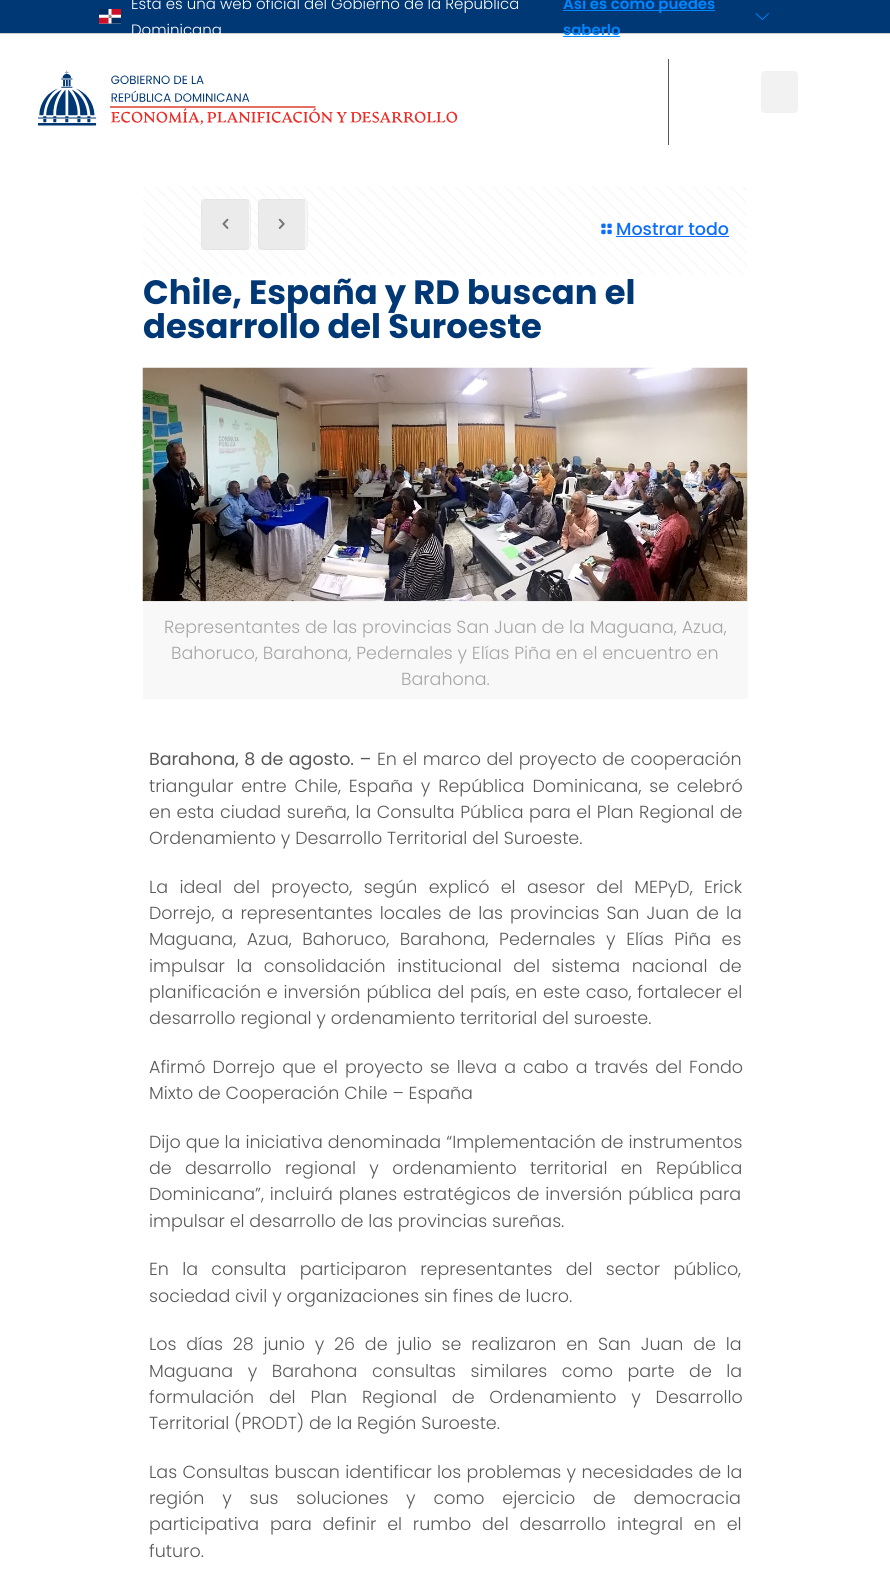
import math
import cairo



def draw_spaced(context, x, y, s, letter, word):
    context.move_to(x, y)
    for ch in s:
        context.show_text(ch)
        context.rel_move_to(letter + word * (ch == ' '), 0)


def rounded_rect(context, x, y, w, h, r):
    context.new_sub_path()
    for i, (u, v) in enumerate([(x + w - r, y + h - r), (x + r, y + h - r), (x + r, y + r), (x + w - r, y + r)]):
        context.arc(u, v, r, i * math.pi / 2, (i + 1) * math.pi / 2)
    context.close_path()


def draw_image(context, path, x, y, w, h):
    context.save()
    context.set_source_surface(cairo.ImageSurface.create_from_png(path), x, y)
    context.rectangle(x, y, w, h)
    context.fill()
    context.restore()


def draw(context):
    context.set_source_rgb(1, 1, 1)
    context.paint()
    context.set_source_rgb(0, 56 / 255, 118 / 255)
    context.rectangle(0, 0, 890, 33)
    context.fill()
    context.set_source_rgb(204 / 255, 204 / 255, 204 / 255)
    context.rectangle(0, 33, 890, 1)
    context.fill()
    draw_image(context, "images/1.png", 99, 9, 22, 15)
    context.set_source_rgb(0, 135 / 255, 1)
    context.rectangle(563, 10, 152, 1)
    context.fill()
    context.rectangle(563, 36, 57, 1)
    context.fill()
    context.new_path()
    context.move_to(768.5, 13.5)
    context.line_to(762.5, 19.5)
    context.line_to(756, 13.5)
    context.set_line_width(0.9)
    context.set_line_cap(cairo.LineCap.ROUND)
    context.set_line_join(cairo.LineJoin.ROUND)
    context.stroke()
    draw_image(context, "images/2.png", 38, 70, 420, 56)
    context.set_source_rgb(89 / 255, 89 / 255, 89 / 255)
    context.rectangle(668, 59, 1, 86)
    context.fill()
    context.set_source_rgb(242 / 255, 242 / 255, 242 / 255)
    rounded_rect(context, 761, 71, 37, 42, 4)
    context.fill()
    draw_image(context, "images/3.png", 143, 186, 604, 89)
    context.set_source_rgb(247 / 255, 247 / 255, 247 / 255)
    rounded_rect(context, 201.5, 199.5, 49, 50, 5.5)
    context.fill_preserve()
    context.set_source_rgb(240 / 255, 240 / 255, 240 / 255)
    context.set_line_width(1)
    context.set_line_cap(cairo.LineCap.BUTT)
    context.set_line_join(cairo.LineJoin.MITER)
    context.stroke()
    draw_image(context, "images/4.png", 222, 218, 7, 11)
    context.set_source_rgba(0, 0, 0, 0.05)
    context.rectangle(201, 199, 48, 51)
    context.fill()
    context.set_source_rgb(247 / 255, 247 / 255, 247 / 255)
    rounded_rect(context, 258.5, 199.5, 49, 50, 5.5)
    context.fill_preserve()
    context.set_source_rgb(240 / 255, 240 / 255, 240 / 255)
    context.stroke()
    draw_image(context, "images/5.png", 278, 218, 7, 11)
    context.set_source_rgba(0, 0, 0, 0.05)
    context.rectangle(258, 199, 47, 51)
    context.fill()
    draw_image(context, "images/6.png", 601, 223, 11, 12)
    context.set_source_rgb(13 / 255, 110 / 255, 253 / 255)
    context.rectangle(616, 236, 113, 1)
    context.fill()
    context.set_source_rgb(248 / 255, 248 / 255, 248 / 255)
    context.rectangle(143, 601, 605, 98)
    context.fill()
    draw_image(context, "images/7.png", 142, 367, 606, 235)
    context.select_font_face("Poppins Light")
    context.set_font_size(15)
    context.set_source_rgb(1, 1, 1)
    context.move_to(131, 9)
    context.show_text("Esta es una web oficial del Gobierno de la República")
    context.move_to(131, 35)
    context.show_text("Dominicana")
    context.select_font_face("Poppins SemiBold")
    context.set_source_rgb(0, 135 / 255, 1)
    context.move_to(563, 9)
    context.show_text("Así es como puedes")
    context.move_to(563, 35)
    context.show_text("saberlo")
    context.select_font_face("Poppins Medium")
    context.set_font_size(17.5)
    context.set_source_rgb(13 / 255, 110 / 255, 253 / 255)
    context.move_to(616, 235)
    context.show_text("Mostrar todo")
    context.select_font_face("Poppins", cairo.FontSlant.NORMAL, cairo.FontWeight.BOLD)
    context.set_font_size(33.75)
    context.set_source_rgb(0, 56 / 255, 118 / 255)
    context.move_to(143, 304)
    context.show_text("Chile, España y RD buscan el")
    context.move_to(143, 338)
    context.show_text("desarrollo del Suroeste")
    context.select_font_face("Poppins Light")
    context.set_font_size(17.5)
    context.set_source_rgb(166 / 255, 166 / 255, 166 / 255)
    context.move_to(164, 633)
    context.show_text("Representantes de las provincias San Juan de la Maguana, Azua,")
    context.move_to(171, 659)
    context.show_text("Bahoruco, Barahona, Pedernales y Elías Piña en el encuentro en")
    context.move_to(401, 685)
    context.show_text("Barahona.")
    context.select_font_face("Poppins")
    context.set_source_rgb(89 / 255, 89 / 255, 89 / 255)
    draw_spaced(context, 149, 765, "Barahona, 8 de agosto. –", 0, 0.75)
    context.select_font_face("Poppins Light")
    draw_spaced(context, 377, 765, "En el marco del proyecto de cooperación", 0, 0.75)
    draw_spaced(context, 149, 792, "triangular entre Chile, España y República Dominicana, se celebró", 0, 3)
    draw_spaced(context, 149, 818, "en esta ciudad sureña, la Consulta Pública para el Plan Regional de", 0, 0.75)
    context.move_to(149, 844)
    context.show_text("Ordenamiento y Desarrollo Territorial del Suroeste.")
    draw_spaced(context, 149, 893, "La ideal del proyecto, según explicó el asesor del MEPyD, Erick", 0, 6.5)
    draw_spaced(context, 149, 919, "Dorrejo, a representantes locales de las provincias San Juan de la", 0, 2.25)
    draw_spaced(context, 149, 945, "Maguana, Azua, Bahoruco, Barahona, Pedernales y Elías Piña es", 0, 5.75)
    draw_spaced(context, 149, 972, "impulsar la consolidación institucional del sistema nacional de", 0, 6.75)
    draw_spaced(context, 149, 998, "planificación e inversión pública del país, en este caso, fortalecer el", 0, 1)
    context.move_to(149, 1024)
    context.show_text("desarrollo regional y ordenamiento territorial del suroeste.")
    draw_spaced(context, 149, 1073, "Afirmó Dorrejo que el proyecto se lleva a cabo a través del Fondo", 0, 2.25)
    context.move_to(149, 1099)
    context.show_text("Mixto de Cooperación Chile – España")
    draw_spaced(context, 149, 1148, "Dijo que la iniciativa denominada “Implementación de instrumentos", 0, 0.25)
    draw_spaced(context, 149, 1174, "de desarrollo regional y ordenamiento territorial en República", 0, 8.5)
    draw_spaced(context, 149, 1200, "Dominicana”, incluirá planes estratégicos de inversión pública para", 0, 1)
    context.move_to(149, 1227)
    context.show_text("impulsar el desarrollo de las provincias sureñas.")
    draw_spaced(context, 149, 1275, "En la consulta participaron representantes del sector público,", 0, 8.5)
    context.move_to(149, 1302)
    context.show_text("sociedad civil y organizaciones sin fines de lucro.")
    draw_spaced(context, 149, 1350, "Los días 28 junio y 26 de julio se realizaron en San Juan de la", 0, 5)
    draw_spaced(context, 149, 1377, "Maguana y Barahona consultas similares como parte de la", 0, 9.75)
    draw_spaced(context, 149, 1403, "formulación del Plan Regional de Ordenamiento y Desarrollo", 0, 10)
    context.move_to(149, 1429)
    context.show_text("Territorial (PRODT) de la Región Suroeste.")
    draw_spaced(context, 149, 1478, "Las Consultas buscan identificar los problemas y necesidades de la", 0, 0.5)
    draw_spaced(context, 149, 1504, "región y sus soluciones y como ejercicio de democracia", 0, 13)
    draw_spaced(context, 149, 1530, "participativa para definir el rumbo del desarrollo integral en el", 0, 6)
    context.move_to(149, 1557)
    context.show_text("futuro.")


surface = cairo.ImageSurface(cairo.Format.RGB24, 890, 1593)
context = cairo.Context(surface)
options = cairo.FontOptions()
options.set_hint_metrics(cairo.HintMetrics.OFF)
options.set_hint_style(cairo.HintStyle.NONE)
context.set_font_options(options)
context.set_miter_limit(4)
draw(context)
surface.write_to_png("out.png")
